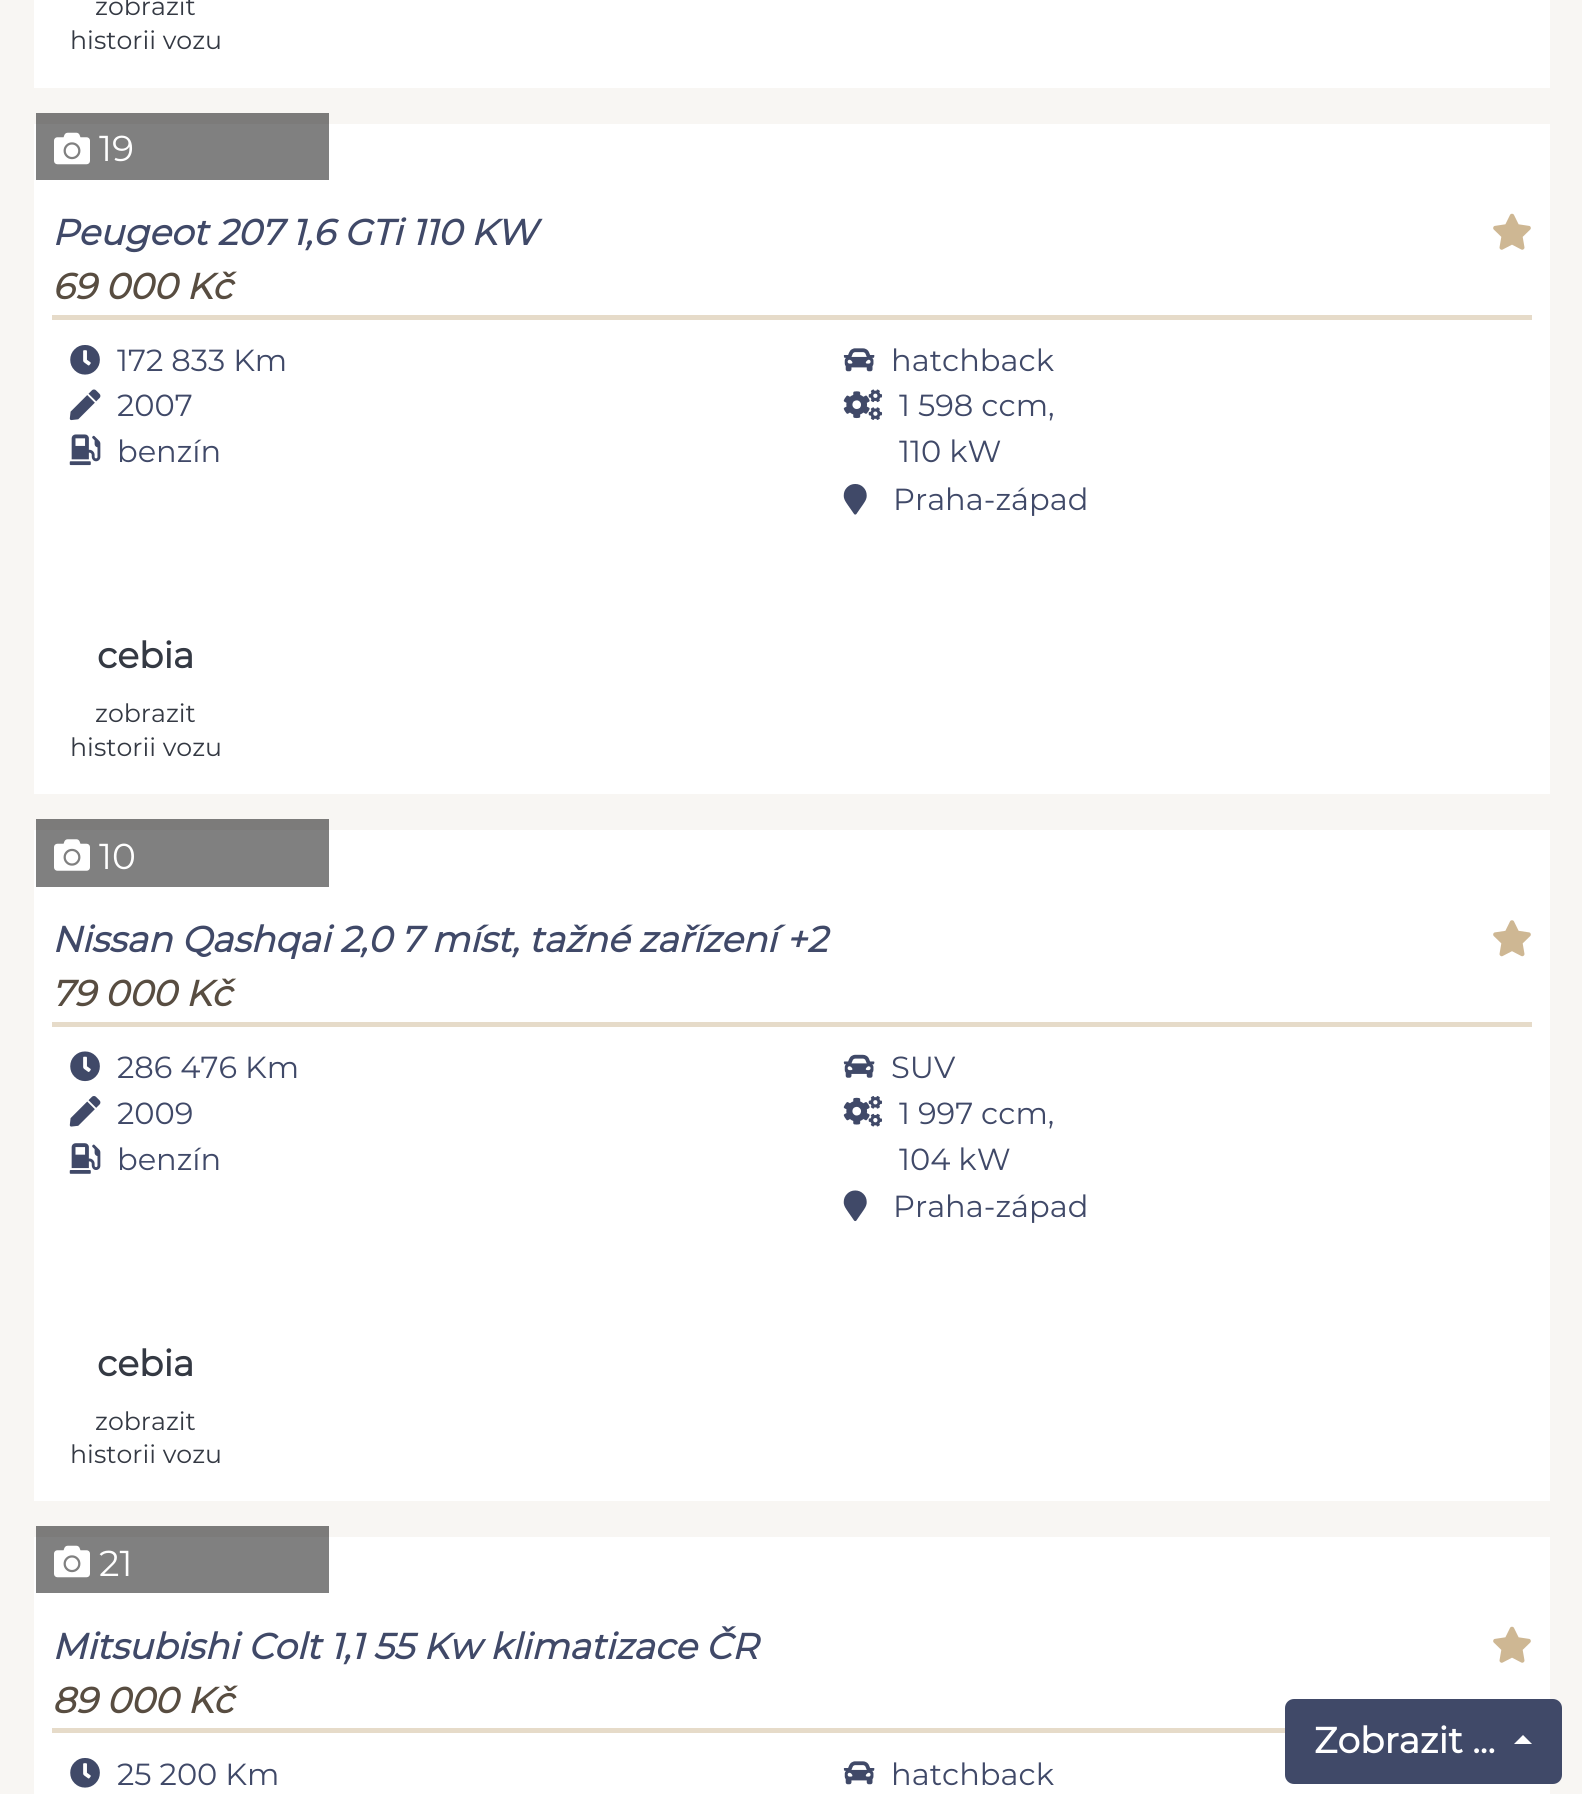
import math
import cairo



def rounded_rect(context, x, y, w, h, r):
    context.new_sub_path()
    for i, (u, v) in enumerate([(x + w - r, y + h - r), (x + r, y + h - r), (x + r, y + r), (x + w - r, y + r)]):
        context.arc(u, v, r, i * math.pi / 2, (i + 1) * math.pi / 2)
    context.close_path()


def draw_image(context, path, x, y, w, h):
    context.save()
    context.set_source_surface(cairo.ImageSurface.create_from_png(path), x, y)
    context.rectangle(x, y, w, h)
    context.fill()
    context.restore()


def draw(context):
    context.set_source_rgb(248 / 255, 246 / 255, 243 / 255)
    context.paint()
    context.set_source_rgb(124 / 255, 123 / 255, 122 / 255)
    context.rectangle(36, 1526, 293, 11)
    context.fill()
    context.rectangle(36, 819, 293, 11)
    context.fill()
    context.rectangle(36, 113, 293, 11)
    context.fill()
    context.set_source_rgb(1, 1, 1)
    context.rectangle(34, 0, 1516, 88)
    context.fill()
    context.rectangle(34, 124, 1516, 670)
    context.fill()
    context.set_source_rgb(128 / 255, 128 / 255, 128 / 255)
    context.rectangle(36, 124, 293, 56)
    context.fill()
    draw_image(context, "images/1.png", 54, 132, 36, 33)
    draw_image(context, "images/2.png", 1493, 213, 38, 37)
    context.set_source_rgb(230 / 255, 219 / 255, 201 / 255)
    context.rectangle(52, 315, 1480, 5)
    context.fill()
    draw_image(context, "images/3.png", 70, 345, 30, 30)
    draw_image(context, "images/4.png", 69, 389, 32, 32)
    draw_image(context, "images/5.png", 69, 434, 32, 32)
    draw_image(context, "images/6.png", 843, 348, 32, 24)
    draw_image(context, "images/7.png", 843, 389, 40, 31)
    draw_image(context, "images/8.png", 843, 484, 24, 31)
    context.set_source_rgb(1, 1, 1)
    context.rectangle(34, 830, 1516, 671)
    context.fill()
    context.set_source_rgb(128 / 255, 128 / 255, 128 / 255)
    context.rectangle(36, 830, 293, 57)
    context.fill()
    draw_image(context, "images/9.png", 54, 839, 36, 32)
    draw_image(context, "images/10.png", 1493, 920, 38, 37)
    context.set_source_rgb(230 / 255, 219 / 255, 201 / 255)
    context.rectangle(52, 1022, 1480, 5)
    context.fill()
    draw_image(context, "images/11.png", 70, 1051, 30, 31)
    draw_image(context, "images/12.png", 69, 1096, 32, 31)
    draw_image(context, "images/13.png", 69, 1143, 32, 31)
    draw_image(context, "images/14.png", 843, 1054, 32, 24)
    draw_image(context, "images/15.png", 843, 1096, 40, 31)
    draw_image(context, "images/16.png", 843, 1190, 24, 32)
    context.set_source_rgb(1, 1, 1)
    context.rectangle(34, 1537, 1516, 257)
    context.fill()
    context.set_source_rgb(128 / 255, 128 / 255, 128 / 255)
    context.rectangle(36, 1537, 293, 56)
    context.fill()
    draw_image(context, "images/1.png", 54, 1545, 36, 33)
    draw_image(context, "images/2.png", 1493, 1626, 38, 37)
    context.set_source_rgb(230 / 255, 219 / 255, 201 / 255)
    context.rectangle(52, 1728, 1233, 5)
    context.fill()
    draw_image(context, "images/3.png", 70, 1758, 30, 30)
    draw_image(context, "images/6.png", 843, 1761, 32, 24)
    context.set_source_rgb(64 / 255, 73 / 255, 104 / 255)
    rounded_rect(context, 1285, 1699, 277, 85, 9)
    context.fill()
    context.set_source_rgb(1, 1, 1)
    context.new_path()
    context.move_to(1532, 1744)
    context.line_to(1514, 1744)
    context.line_to(1523, 1735)
    context.close_path()
    context.fill()
    context.select_font_face("Montserrat")
    context.set_font_size(25.25)
    context.set_source_rgb(52 / 255, 57 / 255, 67 / 255)
    context.move_to(95, 15)
    context.show_text("zobrazit")
    context.move_to(70, 49)
    context.show_text("historii vozu")
    context.set_font_size(36)
    context.set_source_rgb(1, 1, 1)
    context.move_to(99, 161)
    context.show_text("19")
    context.select_font_face("Montserrat", cairo.FontSlant.ITALIC, cairo.FontWeight.BOLD)
    context.set_source_rgb(64 / 255, 73 / 255, 104 / 255)
    context.move_to(52, 245)
    context.show_text("Peugeot 207 1,6 GTi 110 KW")
    context.set_source_rgb(88 / 255, 77 / 255, 65 / 255)
    context.move_to(52, 299)
    context.show_text("69 000 Kč")
    context.select_font_face("Montserrat")
    context.set_font_size(30.5)
    context.set_source_rgb(64 / 255, 73 / 255, 104 / 255)
    context.move_to(117, 371)
    context.show_text("172 833 Km")
    context.move_to(117, 416)
    context.show_text("2007")
    context.move_to(117, 462)
    context.show_text("benzín")
    context.move_to(891, 371)
    context.show_text("hatchback")
    context.move_to(899, 416)
    context.show_text("1 598 ccm,")
    context.move_to(899, 462)
    context.show_text("110 kW")
    context.move_to(893, 510)
    context.show_text("Praha-západ")
    context.select_font_face("Montserrat", cairo.FontSlant.NORMAL, cairo.FontWeight.BOLD)
    context.set_font_size(36)
    context.set_source_rgb(52 / 255, 57 / 255, 67 / 255)
    context.move_to(97, 668)
    context.show_text("cebia")
    context.select_font_face("Montserrat")
    context.set_font_size(25.25)
    context.move_to(95, 722)
    context.show_text("zobrazit")
    context.move_to(70, 756)
    context.show_text("historii vozu")
    context.set_font_size(36)
    context.set_source_rgb(1, 1, 1)
    context.move_to(99, 869)
    context.show_text("10")
    context.select_font_face("Montserrat", cairo.FontSlant.ITALIC, cairo.FontWeight.BOLD)
    context.set_source_rgb(64 / 255, 73 / 255, 104 / 255)
    context.move_to(52, 952)
    context.show_text("Nissan Qashqai 2,0 7 míst, tažné zařízení +2")
    context.set_source_rgb(88 / 255, 77 / 255, 65 / 255)
    context.move_to(52, 1006)
    context.show_text("79 000 Kč")
    context.select_font_face("Montserrat")
    context.set_font_size(30.5)
    context.set_source_rgb(64 / 255, 73 / 255, 104 / 255)
    context.move_to(117, 1078)
    context.show_text("286 476 Km")
    context.move_to(117, 1124)
    context.show_text("2009")
    context.move_to(117, 1170)
    context.show_text("benzín")
    context.move_to(891, 1078)
    context.show_text("SUV")
    context.move_to(899, 1124)
    context.show_text("1 997 ccm,")
    context.move_to(899, 1170)
    context.show_text("104 kW")
    context.move_to(893, 1217)
    context.show_text("Praha-západ")
    context.select_font_face("Montserrat", cairo.FontSlant.NORMAL, cairo.FontWeight.BOLD)
    context.set_font_size(36)
    context.set_source_rgb(52 / 255, 57 / 255, 67 / 255)
    context.move_to(97, 1376)
    context.show_text("cebia")
    context.select_font_face("Montserrat")
    context.set_font_size(25.25)
    context.move_to(95, 1430)
    context.show_text("zobrazit")
    context.move_to(70, 1463)
    context.show_text("historii vozu")
    context.set_font_size(36)
    context.set_source_rgb(1, 1, 1)
    context.move_to(99, 1576)
    context.show_text("21")
    context.select_font_face("Montserrat", cairo.FontSlant.ITALIC, cairo.FontWeight.BOLD)
    context.set_source_rgb(64 / 255, 73 / 255, 104 / 255)
    context.move_to(52, 1659)
    context.show_text("Mitsubishi Colt 1,1 55 Kw klimatizace ČR")
    context.set_source_rgb(88 / 255, 77 / 255, 65 / 255)
    context.move_to(52, 1713)
    context.show_text("89 000 Kč")
    context.select_font_face("Montserrat")
    context.set_font_size(30.5)
    context.set_source_rgb(64 / 255, 73 / 255, 104 / 255)
    context.move_to(117, 1785)
    context.show_text("25 200 Km")
    context.move_to(891, 1785)
    context.show_text("hatchback")
    context.select_font_face("Montserrat", cairo.FontSlant.NORMAL, cairo.FontWeight.BOLD)
    context.set_font_size(36)
    context.set_source_rgb(1, 1, 1)
    context.move_to(1314, 1753)
    context.show_text("Zobrazit ...")


surface = cairo.ImageSurface(cairo.Format.RGB24, 1582, 1794)
context = cairo.Context(surface)
options = cairo.FontOptions()
options.set_hint_metrics(cairo.HintMetrics.OFF)
options.set_hint_style(cairo.HintStyle.NONE)
context.set_font_options(options)
context.set_miter_limit(4)
draw(context)
surface.write_to_png("out.png")
